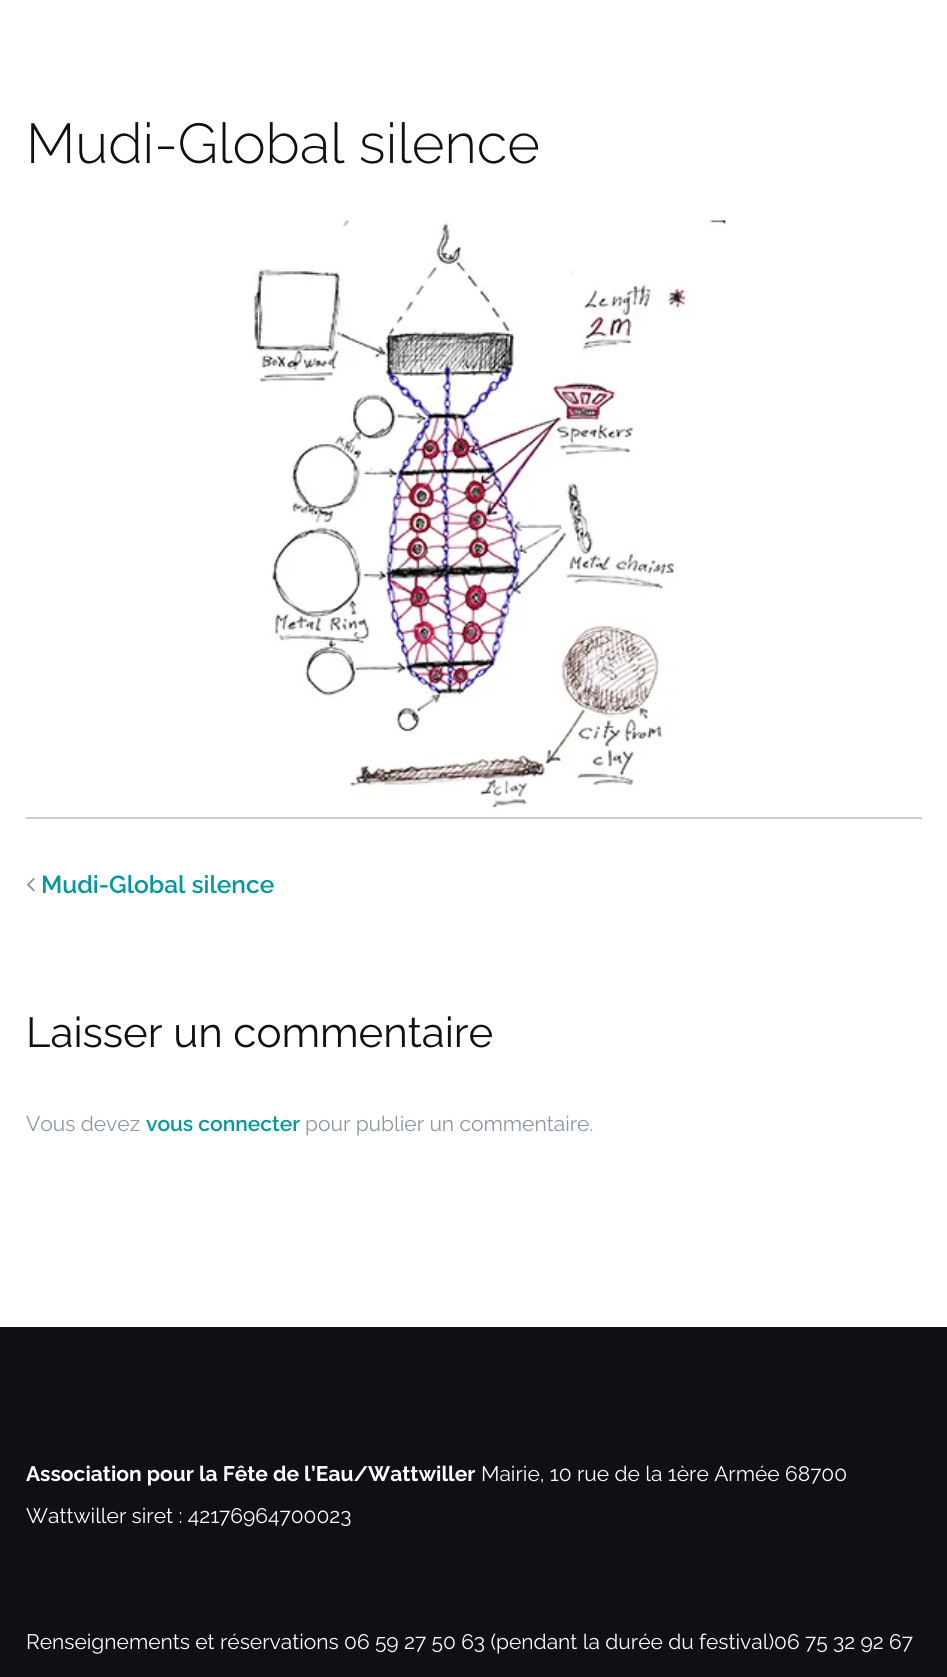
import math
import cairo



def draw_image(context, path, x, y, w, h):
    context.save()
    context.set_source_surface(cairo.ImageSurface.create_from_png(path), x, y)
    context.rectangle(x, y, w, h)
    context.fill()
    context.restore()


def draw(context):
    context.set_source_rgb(1, 1, 1)
    context.paint()
    draw_image(context, "images/1.png", 253, 220, 473, 592)
    context.set_source_rgb(204 / 255, 204 / 255, 204 / 255)
    context.rectangle(26, 817, 896, 2)
    context.fill()
    draw_image(context, "images/2.png", 26, 877, 9, 15)
    context.set_source_rgb(14 / 255, 16 / 255, 21 / 255)
    context.rectangle(0, 1327, 947, 350)
    context.fill()
    context.select_font_face("Raleway Light")
    context.set_font_size(56)
    context.move_to(26, 163)
    context.show_text("Mudi-Global silence")
    context.select_font_face("Raleway SemiBold")
    context.set_font_size(24.5)
    context.set_source_rgb(1 / 255, 152 / 255, 158 / 255)
    context.move_to(41, 893)
    context.show_text("Mudi-Global silence")
    context.select_font_face("Raleway")
    context.set_font_size(42)
    context.set_source_rgb(14 / 255, 16 / 255, 21 / 255)
    context.move_to(26, 1047)
    context.show_text("Laisser un commentaire")
    context.set_font_size(21)
    context.set_source_rgb(140 / 255, 151 / 255, 158 / 255)
    context.move_to(26, 1131)
    context.show_text("Vous devez")
    context.select_font_face("Raleway SemiBold")
    context.set_source_rgb(1 / 255, 152 / 255, 158 / 255)
    context.move_to(146, 1131)
    context.show_text("vous connecter")
    context.select_font_face("Raleway")
    context.set_source_rgb(140 / 255, 151 / 255, 158 / 255)
    context.move_to(305, 1131)
    context.show_text("pour publier un commentaire.")
    context.select_font_face("Raleway", cairo.FontSlant.NORMAL, cairo.FontWeight.BOLD)
    context.set_source_rgb(254 / 255, 254 / 255, 254 / 255)
    context.move_to(26, 1481)
    context.show_text("Association pour la Fête de l’Eau/Wattwiller")
    context.select_font_face("Raleway")
    context.move_to(481, 1481)
    context.show_text("Mairie, 10 rue de la 1ère Armée 68700")
    context.move_to(26, 1523)
    context.show_text("Wattwiller siret : 42176964700023")
    context.move_to(26, 1649)
    context.show_text("Renseignements et réservations 06 59 27 50 63 (pendant la durée du festival)06 75 32 92 67")


surface = cairo.ImageSurface(cairo.Format.RGB24, 947, 1677)
context = cairo.Context(surface)
options = cairo.FontOptions()
options.set_hint_metrics(cairo.HintMetrics.OFF)
options.set_hint_style(cairo.HintStyle.NONE)
context.set_font_options(options)
context.set_miter_limit(4)
draw(context)
surface.write_to_png("out.png")
